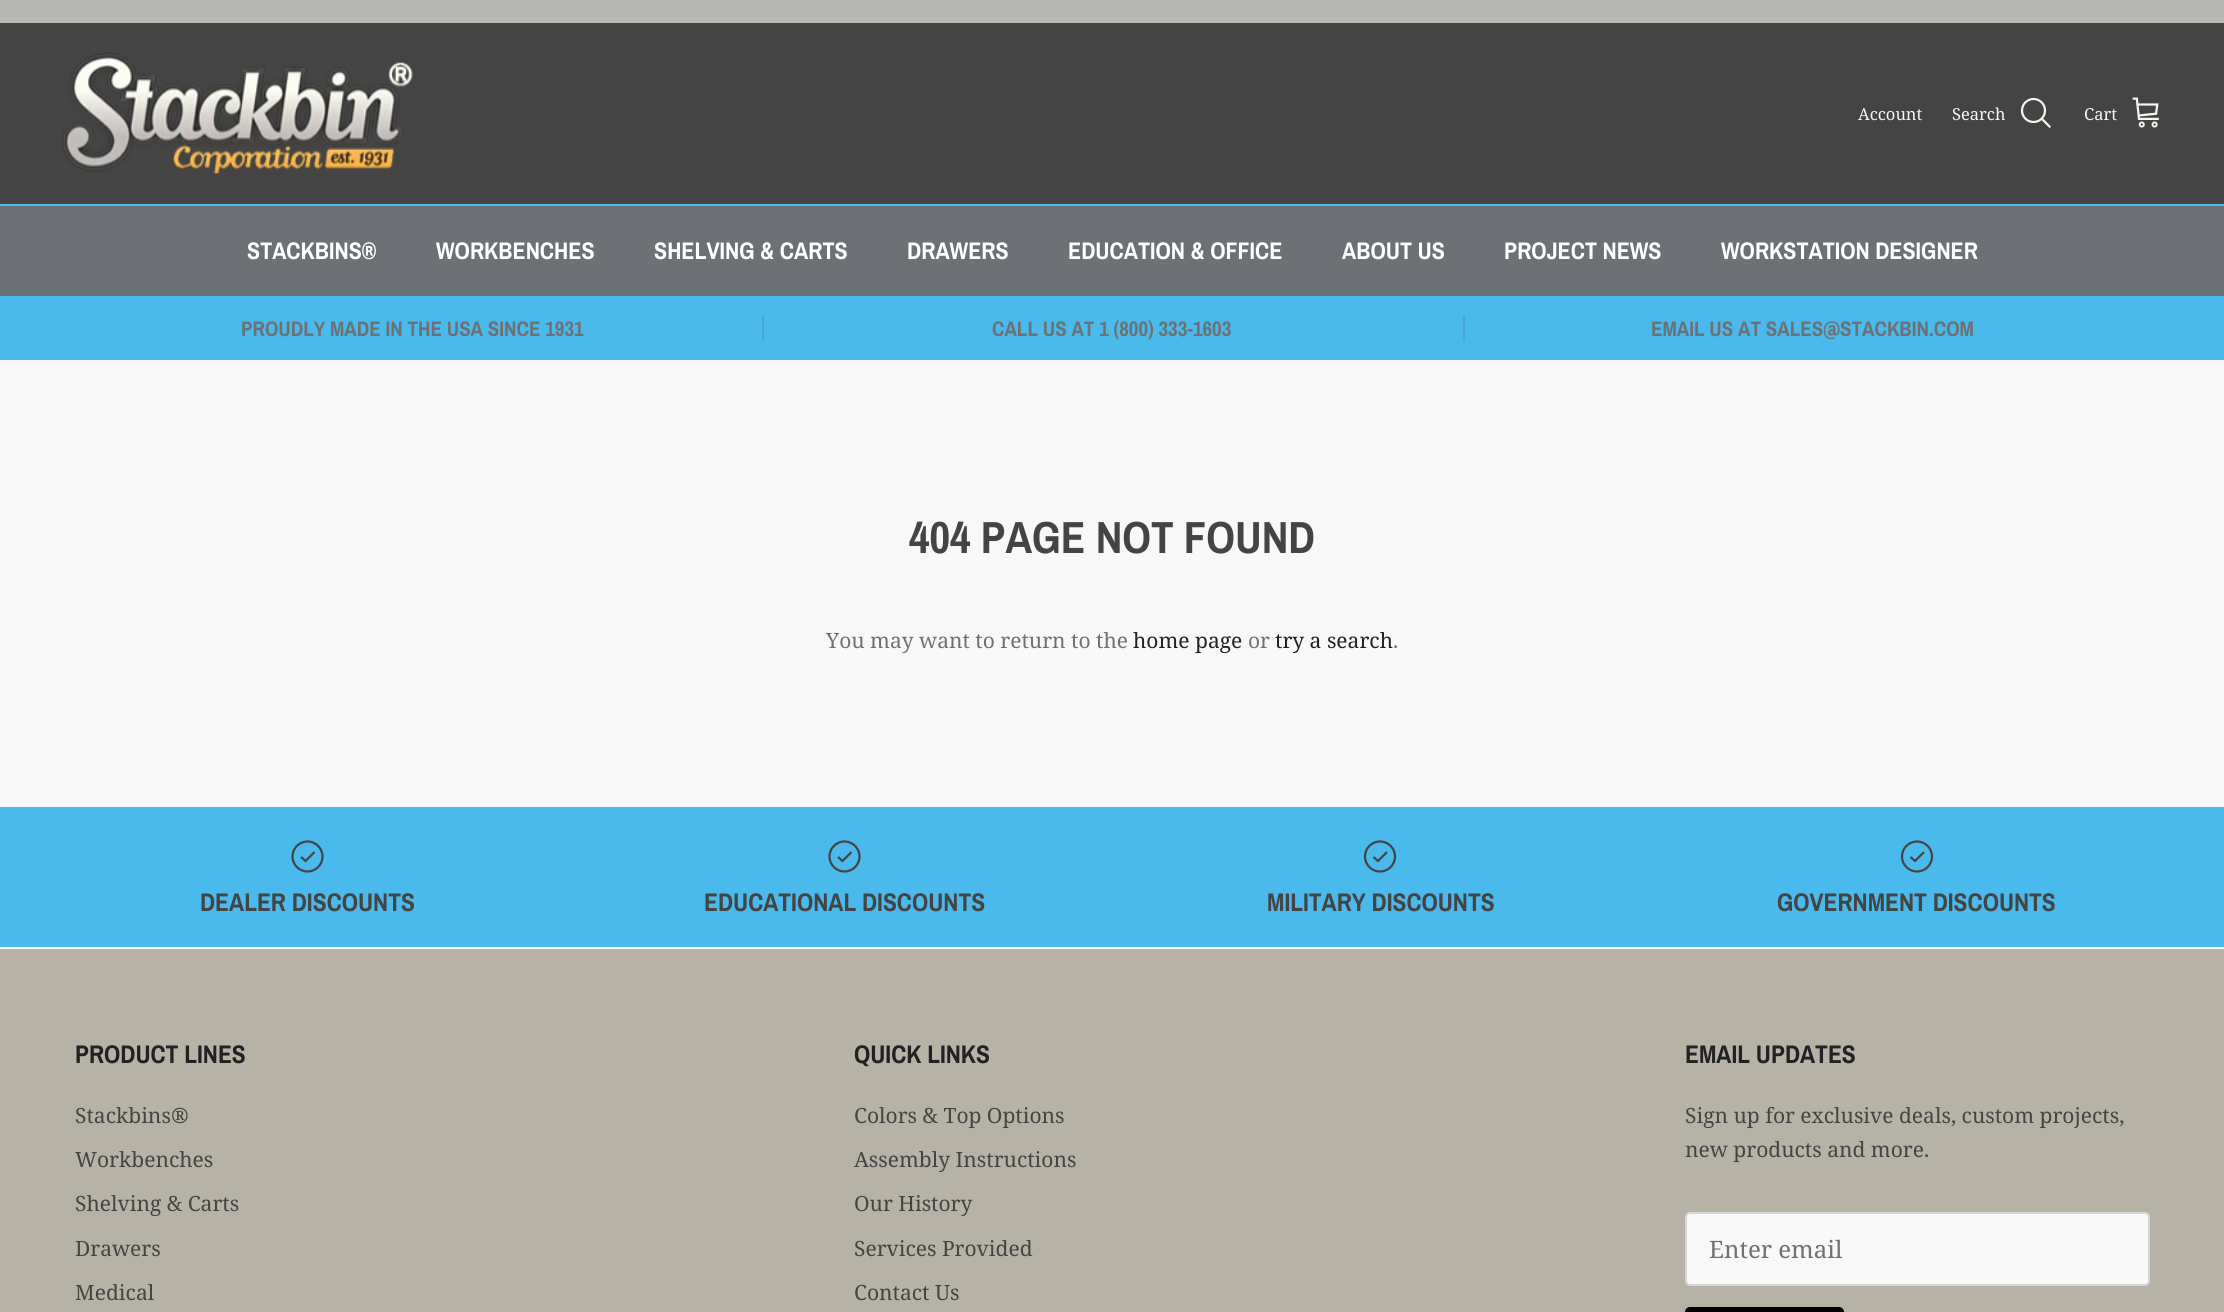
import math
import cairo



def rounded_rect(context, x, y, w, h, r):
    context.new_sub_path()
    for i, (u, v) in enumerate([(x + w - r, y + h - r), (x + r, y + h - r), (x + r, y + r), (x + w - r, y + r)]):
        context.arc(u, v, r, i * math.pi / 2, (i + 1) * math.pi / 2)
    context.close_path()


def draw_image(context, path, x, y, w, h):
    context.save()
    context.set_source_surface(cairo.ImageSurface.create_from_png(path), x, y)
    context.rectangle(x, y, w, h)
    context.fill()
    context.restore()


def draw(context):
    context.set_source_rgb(248 / 255, 248 / 255, 248 / 255)
    context.paint()
    context.set_source_rgb(183 / 255, 183 / 255, 180 / 255)
    context.rectangle(0, 0, 2224, 23)
    context.fill()
    context.set_source_rgb(68 / 255, 68 / 255, 68 / 255)
    context.rectangle(0, 23, 2224, 181)
    context.fill()
    context.set_source_rgb(74 / 255, 185 / 255, 235 / 255)
    context.rectangle(0, 204, 2224, 2)
    context.fill()
    draw_image(context, "images/1.png", 61, 52, 352, 122)
    context.arc(2033.5, 110.5, 11.5, 0, 2 * math.pi)
    context.set_source_rgb(248 / 255, 246 / 255, 238 / 255)
    context.set_line_width(2.2)
    context.stroke()
    context.new_path()
    context.move_to(2043, 120)
    context.line_to(2049.5, 126.5)
    context.set_line_cap(cairo.LineCap.SQUARE)
    context.stroke()
    draw_image(context, "images/2.png", 2132, 97, 27, 31)
    context.set_source_rgb(109 / 255, 113 / 255, 117 / 255)
    context.rectangle(0, 206, 2224, 90)
    context.fill()
    context.set_source_rgb(74 / 255, 185 / 255, 235 / 255)
    context.rectangle(0, 296, 2224, 64)
    context.fill()
    context.set_source_rgb(74 / 255, 169 / 255, 211 / 255)
    context.rectangle(762, 315, 2, 27)
    context.fill()
    context.rectangle(1463, 315, 2, 27)
    context.fill()
    context.set_source_rgb(182 / 255, 178 / 255, 166 / 255)
    context.rectangle(0, 949, 2224, 363)
    context.fill()
    context.set_source_rgb(74 / 255, 185 / 255, 235 / 255)
    context.rectangle(0, 807, 2224, 140)
    context.fill()
    context.arc(307.5, 856.5, 15, 0, 2 * math.pi)
    context.set_source_rgb(68 / 255, 68 / 255, 68 / 255)
    context.set_line_cap(cairo.LineCap.BUTT)
    context.stroke()
    context.new_path()
    context.move_to(314.5, 852)
    context.line_to(305.5, 861)
    context.line_to(301, 857)
    context.stroke()
    context.arc(844.5, 856.5, 15, 0, 2 * math.pi)
    context.stroke()
    context.new_path()
    context.move_to(851.5, 852)
    context.line_to(842.5, 861)
    context.line_to(838, 857)
    context.stroke()
    context.arc(1380, 856.5, 15, 0, 2 * math.pi)
    context.stroke()
    context.new_path()
    context.move_to(1387, 852)
    context.line_to(1378, 861)
    context.line_to(1373.5, 857)
    context.stroke()
    context.arc(1917, 856.5, 15, 0, 2 * math.pi)
    context.stroke()
    context.new_path()
    context.move_to(1924, 852)
    context.line_to(1915, 861)
    context.line_to(1910.5, 857)
    context.stroke()
    context.set_source_rgb(248 / 255, 246 / 255, 238 / 255)
    context.rectangle(0, 947, 2224, 2)
    context.fill()
    context.set_source_rgb(248 / 255, 248 / 255, 248 / 255)
    rounded_rect(context, 1686, 1213, 463, 72, 4)
    context.fill_preserve()
    context.set_source_rgb(213 / 255, 214 / 255, 215 / 255)
    context.set_line_width(2)
    context.stroke()
    context.set_source_rgb(0, 0, 0)
    rounded_rect(context, 1686, 1308, 157, 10, 4)
    context.fill_preserve()
    context.stroke()
    context.select_font_face("Noto Serif")
    context.set_font_size(16.5)
    context.set_source_rgb(248 / 255, 246 / 255, 238 / 255)
    context.move_to(1858, 120)
    context.show_text("Account")
    context.move_to(1952, 120)
    context.show_text("Search")
    context.move_to(2084, 120)
    context.show_text("Cart")
    context.select_font_face("Archivo Narrow", cairo.FontSlant.NORMAL, cairo.FontWeight.BOLD)
    context.set_font_size(24)
    context.set_source_rgb(1, 1, 1)
    context.move_to(247, 259)
    context.show_text("STACKBINS®")
    context.move_to(436, 259)
    context.show_text("WORKBENCHES")
    context.move_to(654, 259)
    context.show_text("SHELVING & CARTS")
    context.move_to(907, 259)
    context.show_text("DRAWERS")
    context.move_to(1068, 259)
    context.show_text("EDUCATION & OFFICE")
    context.move_to(1342, 259)
    context.show_text("ABOUT US")
    context.move_to(1504, 259)
    context.show_text("PROJECT NEWS")
    context.move_to(1721, 259)
    context.show_text("WORKSTATION DESIGNER")
    context.set_font_size(21)
    context.set_source_rgb(109 / 255, 113 / 255, 117 / 255)
    context.move_to(241, 336)
    context.show_text("PROUDLY MADE IN THE USA SINCE 1931")
    context.move_to(992, 336)
    context.show_text("CALL US AT 1 (800) 333-1603")
    context.move_to(1651, 336)
    context.show_text("EMAIL US AT SALES@STACKBIN.COM")
    context.set_font_size(45)
    context.set_source_rgb(68 / 255, 68 / 255, 68 / 255)
    context.move_to(909, 553)
    context.show_text("404 PAGE NOT FOUND")
    context.select_font_face("Noto Serif")
    context.set_font_size(21)
    context.set_source_rgb(109 / 255, 113 / 255, 117 / 255)
    context.move_to(826, 648)
    context.show_text("You may want to return to the")
    context.set_source_rgb(32 / 255, 34 / 255, 35 / 255)
    context.move_to(1133, 648)
    context.show_text("home page")
    context.set_source_rgb(109 / 255, 113 / 255, 117 / 255)
    context.move_to(1248, 648)
    context.show_text("or")
    context.set_source_rgb(32 / 255, 34 / 255, 35 / 255)
    context.move_to(1275, 648)
    context.show_text("try a search")
    context.set_source_rgb(109 / 255, 113 / 255, 117 / 255)
    context.move_to(1393, 648)
    context.show_text(".")
    context.select_font_face("Archivo Narrow", cairo.FontSlant.NORMAL, cairo.FontWeight.BOLD)
    context.set_font_size(25.5)
    context.set_source_rgb(68 / 255, 68 / 255, 68 / 255)
    context.move_to(200, 911)
    context.show_text("DEALER DISCOUNTS")
    context.move_to(704, 911)
    context.show_text("EDUCATIONAL DISCOUNTS")
    context.move_to(1267, 911)
    context.show_text("MILITARY DISCOUNTS")
    context.move_to(1777, 911)
    context.show_text("GOVERNMENT DISCOUNTS")
    context.set_source_rgb(32 / 255, 34 / 255, 35 / 255)
    context.move_to(75, 1063)
    context.show_text("PRODUCT LINES")
    context.select_font_face("Noto Serif")
    context.set_font_size(21)
    context.set_source_rgb(68 / 255, 68 / 255, 68 / 255)
    context.move_to(75, 1123)
    context.show_text("Stackbins®")
    context.move_to(75, 1167)
    context.show_text("Workbenches")
    context.move_to(75, 1211)
    context.show_text("Shelving & Carts")
    context.move_to(75, 1256)
    context.show_text("Drawers")
    context.move_to(75, 1300)
    context.show_text("Medical")
    context.select_font_face("Archivo Narrow", cairo.FontSlant.NORMAL, cairo.FontWeight.BOLD)
    context.set_font_size(25.5)
    context.set_source_rgb(32 / 255, 34 / 255, 35 / 255)
    context.move_to(854, 1063)
    context.show_text("QUICK LINKS")
    context.select_font_face("Noto Serif")
    context.set_font_size(21)
    context.set_source_rgb(68 / 255, 68 / 255, 68 / 255)
    context.move_to(854, 1123)
    context.show_text("Colors & Top Options")
    context.move_to(854, 1167)
    context.show_text("Assembly Instructions")
    context.move_to(854, 1211)
    context.show_text("Our History")
    context.move_to(854, 1256)
    context.show_text("Services Provided")
    context.move_to(854, 1300)
    context.show_text("Contact Us")
    context.select_font_face("Archivo Narrow", cairo.FontSlant.NORMAL, cairo.FontWeight.BOLD)
    context.set_font_size(25.5)
    context.set_source_rgb(32 / 255, 34 / 255, 35 / 255)
    context.move_to(1685, 1063)
    context.show_text("EMAIL UPDATES")
    context.select_font_face("Noto Serif")
    context.set_font_size(21)
    context.set_source_rgb(68 / 255, 68 / 255, 68 / 255)
    context.move_to(1685, 1123)
    context.show_text("Sign up for exclusive deals, custom projects,")
    context.move_to(1685, 1157)
    context.show_text("new products and more.")
    context.set_font_size(24)
    context.set_source_rgb(109 / 255, 113 / 255, 117 / 255)
    context.move_to(1709, 1258)
    context.show_text("Enter email")


surface = cairo.ImageSurface(cairo.Format.RGB24, 2224, 1312)
context = cairo.Context(surface)
options = cairo.FontOptions()
options.set_hint_metrics(cairo.HintMetrics.OFF)
options.set_hint_style(cairo.HintStyle.NONE)
context.set_font_options(options)
context.set_miter_limit(4)
draw(context)
surface.write_to_png("out.png")
